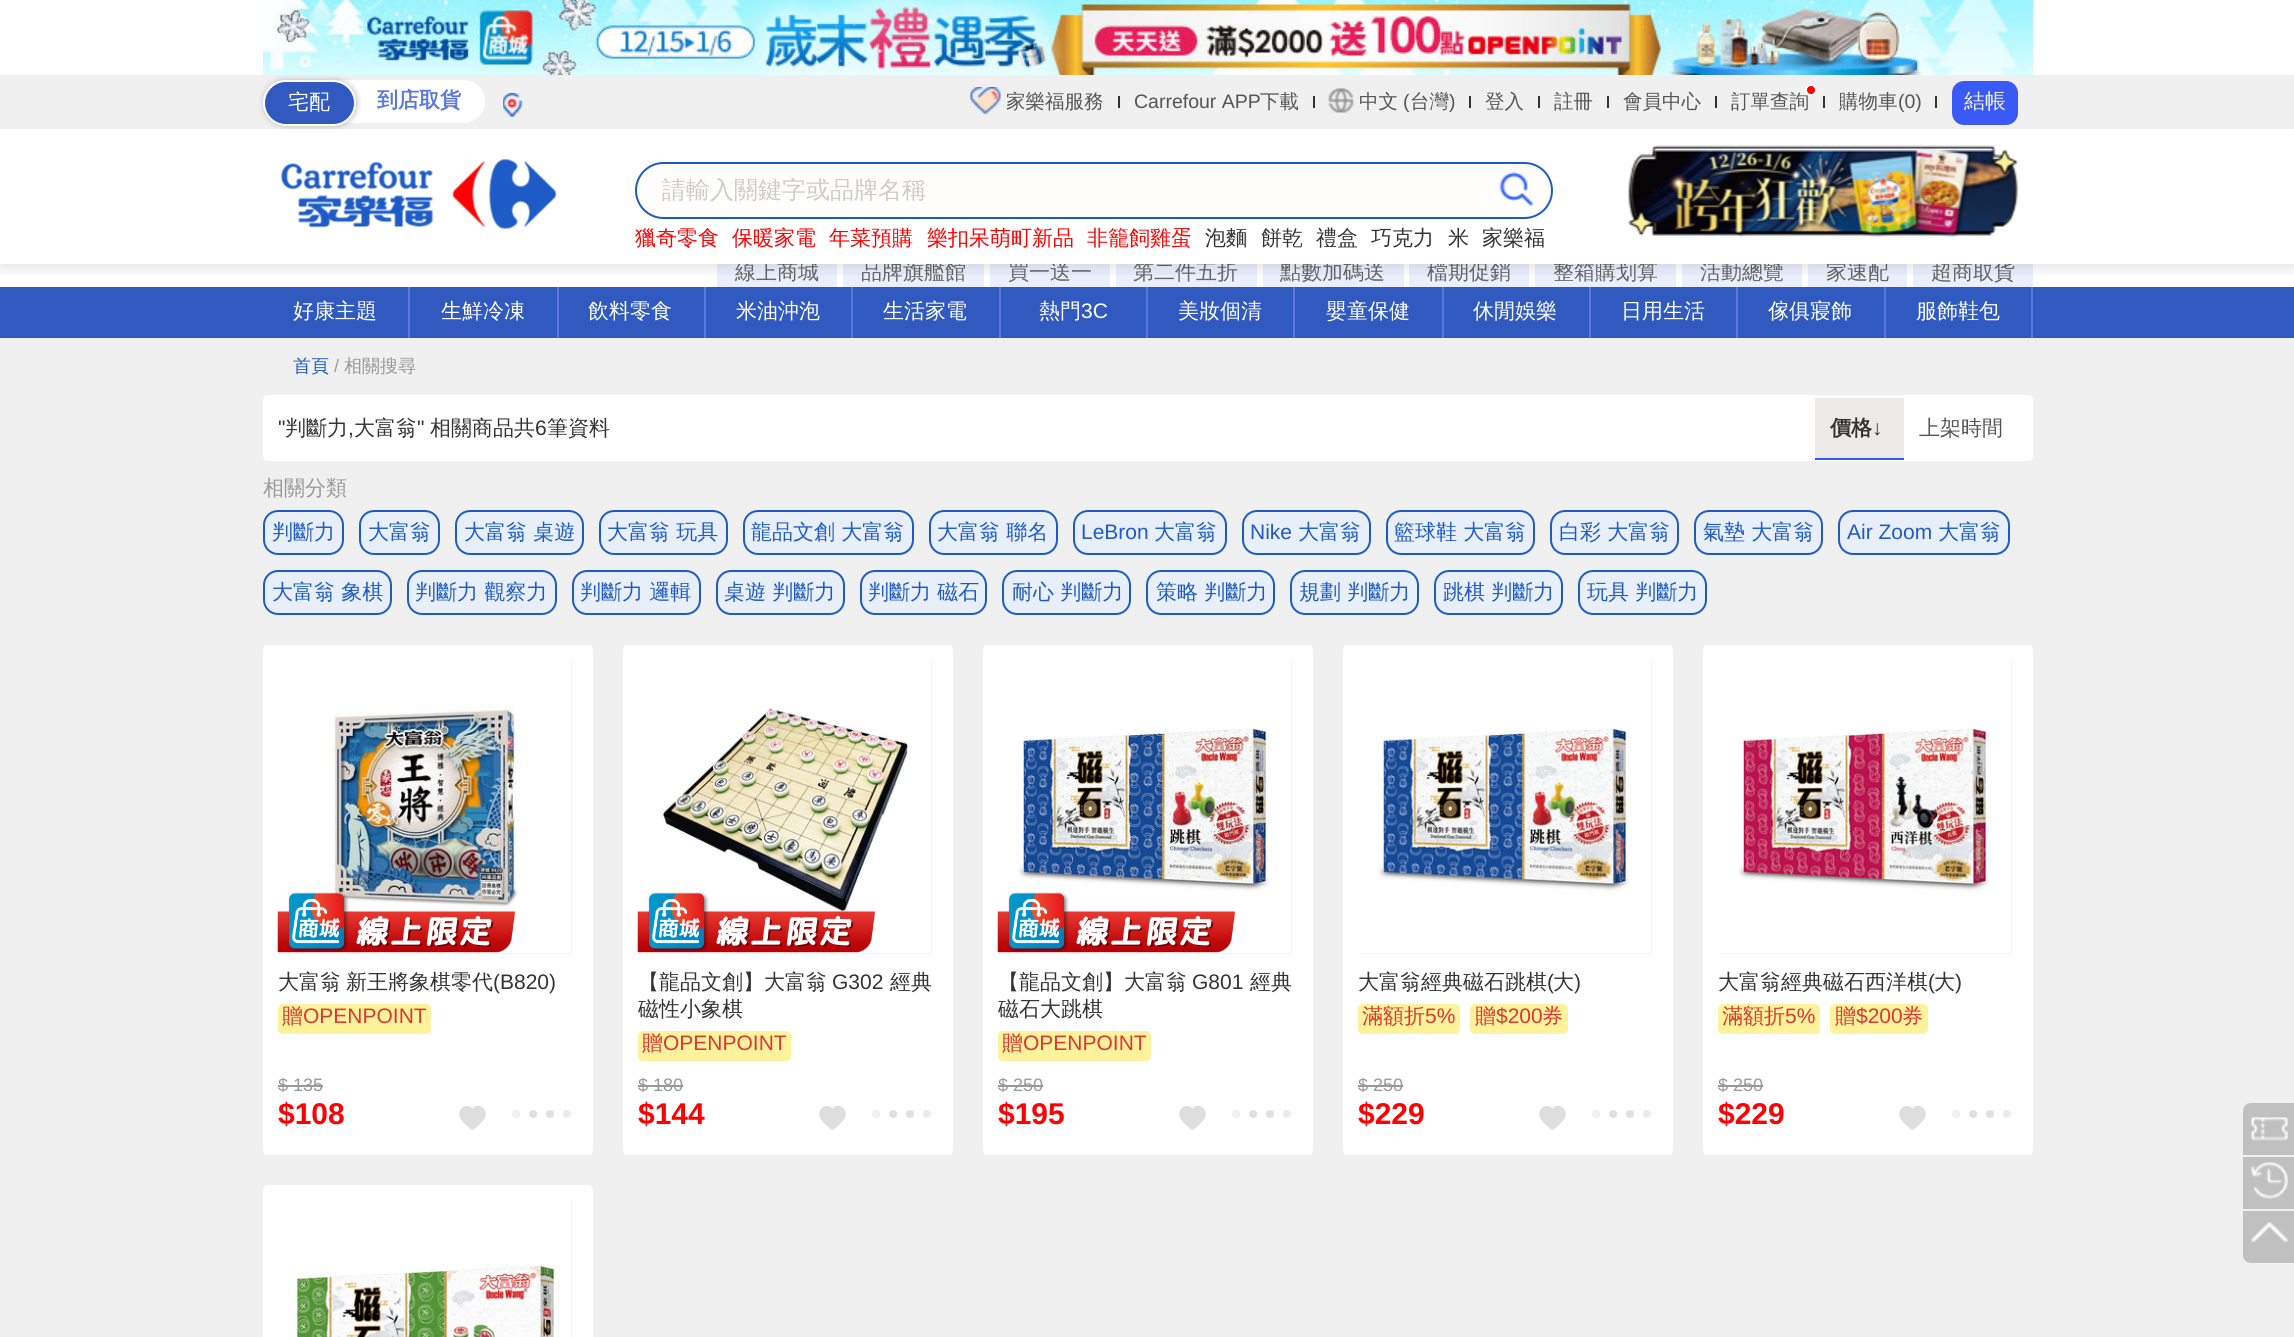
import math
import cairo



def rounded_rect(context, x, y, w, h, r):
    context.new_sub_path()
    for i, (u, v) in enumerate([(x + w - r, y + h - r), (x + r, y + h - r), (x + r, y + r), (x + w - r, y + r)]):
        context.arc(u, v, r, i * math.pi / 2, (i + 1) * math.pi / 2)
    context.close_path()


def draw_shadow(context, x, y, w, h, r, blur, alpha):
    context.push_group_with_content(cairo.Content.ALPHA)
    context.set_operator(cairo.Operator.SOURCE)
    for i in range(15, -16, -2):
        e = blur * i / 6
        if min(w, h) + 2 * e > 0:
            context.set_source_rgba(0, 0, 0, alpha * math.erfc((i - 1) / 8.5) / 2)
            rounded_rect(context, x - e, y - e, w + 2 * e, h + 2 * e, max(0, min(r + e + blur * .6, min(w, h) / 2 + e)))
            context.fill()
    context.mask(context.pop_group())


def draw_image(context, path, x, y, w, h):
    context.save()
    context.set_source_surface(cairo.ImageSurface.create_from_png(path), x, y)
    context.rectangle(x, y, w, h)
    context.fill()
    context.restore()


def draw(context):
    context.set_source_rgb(240 / 255, 240 / 255, 240 / 255)
    context.paint()
    context.set_source_rgb(1, 1, 1)
    context.rectangle(0, 264, 2294, 23)
    context.fill()
    context.set_source_rgb(235 / 255, 238 / 255, 253 / 255)
    context.new_path()
    context.move_to(729, 254)
    context.line_to(825, 254)
    context.curve_to(831.5, 254, 837, 259.5, 837, 266)
    context.line_to(837, 290)
    context.line_to(717, 290)
    context.line_to(717, 266)
    context.curve_to(717, 259.5, 722.5, 254, 729, 254)
    context.close_path()
    context.fill()
    context.new_path()
    context.move_to(855, 254)
    context.line_to(972, 254)
    context.curve_to(978.5, 254, 984, 259.5, 984, 266)
    context.line_to(984, 290)
    context.line_to(843, 290)
    context.line_to(843, 266)
    context.curve_to(843, 259.5, 848.5, 254, 855, 254)
    context.close_path()
    context.fill()
    context.new_path()
    context.move_to(1002, 254)
    context.line_to(1098, 254)
    context.curve_to(1104.5, 254, 1110, 259.5, 1110, 266)
    context.line_to(1110, 290)
    context.line_to(990, 290)
    context.line_to(990, 266)
    context.curve_to(990, 259.5, 995.5, 254, 1002, 254)
    context.close_path()
    context.fill()
    context.new_path()
    context.move_to(1128, 254)
    context.line_to(1245, 254)
    context.curve_to(1251.5, 254, 1257, 259.5, 1257, 266)
    context.line_to(1257, 290)
    context.line_to(1116, 290)
    context.line_to(1116, 266)
    context.curve_to(1116, 259.5, 1121.5, 254, 1128, 254)
    context.close_path()
    context.fill()
    context.new_path()
    context.move_to(1275, 254)
    context.line_to(1392, 254)
    context.curve_to(1398.5, 254, 1404, 259.5, 1404, 266)
    context.line_to(1404, 290)
    context.line_to(1263, 290)
    context.line_to(1263, 266)
    context.curve_to(1263, 259.5, 1268.5, 254, 1275, 254)
    context.close_path()
    context.fill()
    context.new_path()
    context.move_to(1421, 254)
    context.line_to(1517, 254)
    context.curve_to(1523.5, 254, 1529, 259.5, 1529, 266)
    context.line_to(1529, 290)
    context.line_to(1409, 290)
    context.line_to(1409, 266)
    context.curve_to(1409, 259.5, 1414.5, 254, 1421, 254)
    context.close_path()
    context.fill()
    context.new_path()
    context.move_to(1547, 254)
    context.line_to(1664, 254)
    context.curve_to(1670.5, 254, 1676, 259.5, 1676, 266)
    context.line_to(1676, 290)
    context.line_to(1535, 290)
    context.line_to(1535, 266)
    context.curve_to(1535, 259.5, 1540.5, 254, 1547, 254)
    context.close_path()
    context.fill()
    context.new_path()
    context.move_to(1694, 254)
    context.line_to(1790, 254)
    context.curve_to(1796.5, 254, 1802, 259.5, 1802, 266)
    context.line_to(1802, 290)
    context.line_to(1682, 290)
    context.line_to(1682, 266)
    context.curve_to(1682, 259.5, 1687.5, 254, 1694, 254)
    context.close_path()
    context.fill()
    context.new_path()
    context.move_to(1820, 254)
    context.line_to(1895, 254)
    context.curve_to(1901.5, 254, 1907, 259.5, 1907, 266)
    context.line_to(1907, 290)
    context.line_to(1808, 290)
    context.line_to(1808, 266)
    context.curve_to(1808, 259.5, 1813.5, 254, 1820, 254)
    context.close_path()
    context.fill()
    context.new_path()
    context.move_to(1925, 254)
    context.line_to(2021, 254)
    context.curve_to(2027.5, 254, 2033, 259.5, 2033, 266)
    context.line_to(2033, 290)
    context.line_to(1913, 290)
    context.line_to(1913, 266)
    context.curve_to(1913, 259.5, 1918.5, 254, 1925, 254)
    context.close_path()
    context.fill()
    context.set_source_rgb(48 / 255, 90 / 255, 191 / 255)
    context.rectangle(0, 287, 2294, 51)
    context.fill()
    context.set_source_rgb(88 / 255, 119 / 255, 225 / 255)
    context.rectangle(408, 287, 2, 51)
    context.fill()
    context.rectangle(557, 287, 2, 51)
    context.fill()
    context.rectangle(704, 287, 2, 51)
    context.fill()
    context.rectangle(851, 287, 2, 51)
    context.fill()
    context.rectangle(999, 287, 2, 51)
    context.fill()
    context.rectangle(1146, 287, 2, 51)
    context.fill()
    context.rectangle(1293, 287, 2, 51)
    context.fill()
    context.rectangle(1442, 287, 2, 51)
    context.fill()
    context.rectangle(1589, 287, 2, 51)
    context.fill()
    context.rectangle(1736, 287, 2, 51)
    context.fill()
    context.rectangle(1884, 287, 2, 51)
    context.fill()
    context.rectangle(2031, 287, 2, 51)
    context.fill()
    context.set_source_rgb(1, 1, 1)
    rounded_rect(context, 263, 395, 1770, 66, 5)
    context.fill()
    context.set_source_rgb(235 / 255, 234 / 255, 232 / 255)
    context.rectangle(1815, 398, 89, 60)
    context.fill()
    context.set_source_rgb(46 / 255, 91 / 255, 1)
    context.rectangle(1815, 458, 89, 2)
    context.fill()
    context.set_source_rgb(232 / 255, 239 / 255, 249 / 255)
    rounded_rect(context, 264, 511, 79, 43, 14)
    context.fill_preserve()
    context.set_source_rgb(30 / 255, 91 / 255, 198 / 255)
    context.stroke()
    context.set_source_rgb(232 / 255, 239 / 255, 249 / 255)
    rounded_rect(context, 360, 511, 79, 43, 14)
    context.fill_preserve()
    context.set_source_rgb(30 / 255, 91 / 255, 198 / 255)
    context.stroke()
    context.set_source_rgb(232 / 255, 239 / 255, 249 / 255)
    rounded_rect(context, 456, 511, 127, 43, 14)
    context.fill_preserve()
    context.set_source_rgb(30 / 255, 91 / 255, 198 / 255)
    context.stroke()
    context.set_source_rgb(232 / 255, 239 / 255, 249 / 255)
    rounded_rect(context, 600, 511, 127, 43, 14)
    context.fill_preserve()
    context.set_source_rgb(30 / 255, 91 / 255, 198 / 255)
    context.stroke()
    context.set_source_rgb(232 / 255, 239 / 255, 249 / 255)
    rounded_rect(context, 744, 511, 169, 43, 14)
    context.fill_preserve()
    context.set_source_rgb(30 / 255, 91 / 255, 198 / 255)
    context.stroke()
    context.set_source_rgb(232 / 255, 239 / 255, 249 / 255)
    rounded_rect(context, 930, 511, 127, 43, 14)
    context.fill_preserve()
    context.set_source_rgb(30 / 255, 91 / 255, 198 / 255)
    context.stroke()
    context.set_source_rgb(232 / 255, 239 / 255, 249 / 255)
    rounded_rect(context, 1074, 511, 152, 43, 14)
    context.fill_preserve()
    context.set_source_rgb(30 / 255, 91 / 255, 198 / 255)
    context.stroke()
    context.set_source_rgb(232 / 255, 239 / 255, 249 / 255)
    rounded_rect(context, 1243, 511, 127, 43, 14)
    context.fill_preserve()
    context.set_source_rgb(30 / 255, 91 / 255, 198 / 255)
    context.stroke()
    context.set_source_rgb(232 / 255, 239 / 255, 249 / 255)
    rounded_rect(context, 1387, 511, 147, 43, 14)
    context.fill_preserve()
    context.set_source_rgb(30 / 255, 91 / 255, 198 / 255)
    context.stroke()
    context.set_source_rgb(232 / 255, 239 / 255, 249 / 255)
    rounded_rect(context, 1551, 511, 127, 43, 14)
    context.fill_preserve()
    context.set_source_rgb(30 / 255, 91 / 255, 198 / 255)
    context.stroke()
    context.set_source_rgb(232 / 255, 239 / 255, 249 / 255)
    rounded_rect(context, 1695, 511, 127, 43, 14)
    context.fill_preserve()
    context.set_source_rgb(30 / 255, 91 / 255, 198 / 255)
    context.stroke()
    context.set_source_rgb(232 / 255, 239 / 255, 249 / 255)
    rounded_rect(context, 1839, 511, 170, 43, 14)
    context.fill_preserve()
    context.set_source_rgb(30 / 255, 91 / 255, 198 / 255)
    context.stroke()
    context.set_source_rgb(232 / 255, 239 / 255, 249 / 255)
    rounded_rect(context, 264, 571, 127, 43, 14)
    context.fill_preserve()
    context.set_source_rgb(30 / 255, 91 / 255, 198 / 255)
    context.stroke()
    context.set_source_rgb(232 / 255, 239 / 255, 249 / 255)
    rounded_rect(context, 408, 571, 148, 43, 14)
    context.fill_preserve()
    context.set_source_rgb(30 / 255, 91 / 255, 198 / 255)
    context.stroke()
    context.set_source_rgb(232 / 255, 239 / 255, 249 / 255)
    rounded_rect(context, 573, 571, 127, 43, 14)
    context.fill_preserve()
    context.set_source_rgb(30 / 255, 91 / 255, 198 / 255)
    context.stroke()
    context.set_source_rgb(232 / 255, 239 / 255, 249 / 255)
    rounded_rect(context, 717, 571, 127, 43, 14)
    context.fill_preserve()
    context.set_source_rgb(30 / 255, 91 / 255, 198 / 255)
    context.stroke()
    context.set_source_rgb(232 / 255, 239 / 255, 249 / 255)
    rounded_rect(context, 861, 571, 125, 43, 14)
    context.fill_preserve()
    context.set_source_rgb(30 / 255, 91 / 255, 198 / 255)
    context.stroke()
    context.set_source_rgb(232 / 255, 239 / 255, 249 / 255)
    rounded_rect(context, 1003, 571, 127, 43, 14)
    context.fill_preserve()
    context.set_source_rgb(30 / 255, 91 / 255, 198 / 255)
    context.stroke()
    context.set_source_rgb(232 / 255, 239 / 255, 249 / 255)
    rounded_rect(context, 1147, 571, 127, 43, 14)
    context.fill_preserve()
    context.set_source_rgb(30 / 255, 91 / 255, 198 / 255)
    context.stroke()
    context.set_source_rgb(232 / 255, 239 / 255, 249 / 255)
    rounded_rect(context, 1291, 571, 127, 43, 14)
    context.fill_preserve()
    context.set_source_rgb(30 / 255, 91 / 255, 198 / 255)
    context.stroke()
    context.set_source_rgb(232 / 255, 239 / 255, 249 / 255)
    rounded_rect(context, 1435, 571, 127, 43, 14)
    context.fill_preserve()
    context.set_source_rgb(30 / 255, 91 / 255, 198 / 255)
    context.stroke()
    context.set_source_rgb(232 / 255, 239 / 255, 249 / 255)
    rounded_rect(context, 1579, 571, 127, 43, 14)
    context.fill_preserve()
    context.set_source_rgb(30 / 255, 91 / 255, 198 / 255)
    context.stroke()
    context.set_source_rgb(1, 1, 1)
    rounded_rect(context, 263, 645, 330, 510, 5)
    context.fill()
    context.set_source_rgb(235 / 255, 234 / 255, 232 / 255)
    context.rectangle(278, 660, 294, 294)
    context.fill()
    draw_image(context, "images/8.png", 278, 660, 294, 294)
    draw_image(context, "images/9.png", 277, 892, 238, 61)
    context.set_source_rgb(1, 242 / 255, 156 / 255)
    rounded_rect(context, 278, 1004, 153, 30, 5)
    context.fill()
    context.set_source_rgb(153 / 255, 153 / 255, 153 / 255)
    context.rectangle(278, 1085, 45, 2)
    context.fill()
    draw_image(context, "images/10.png", 459, 1106, 27, 24)
    draw_image(context, "images/11.png", 512, 1110, 59, 8)
    context.set_source_rgb(1, 1, 1)
    rounded_rect(context, 623, 645, 330, 510, 5)
    context.fill()
    context.set_source_rgb(235 / 255, 234 / 255, 232 / 255)
    context.rectangle(638, 660, 294, 294)
    context.fill()
    draw_image(context, "images/12.png", 638, 660, 294, 294)
    draw_image(context, "images/13.png", 637, 892, 238, 61)
    context.set_source_rgb(1, 242 / 255, 156 / 255)
    rounded_rect(context, 638, 1031, 153, 30, 5)
    context.fill()
    context.set_source_rgb(153 / 255, 153 / 255, 153 / 255)
    context.rectangle(638, 1085, 45, 2)
    context.fill()
    draw_image(context, "images/10.png", 819, 1106, 27, 24)
    draw_image(context, "images/11.png", 872, 1110, 59, 8)
    context.set_source_rgb(1, 1, 1)
    rounded_rect(context, 983, 645, 330, 510, 5)
    context.fill()
    context.set_source_rgb(235 / 255, 234 / 255, 232 / 255)
    context.rectangle(998, 660, 294, 294)
    context.fill()
    draw_image(context, "images/14.png", 998, 660, 294, 294)
    draw_image(context, "images/15.png", 997, 892, 238, 61)
    context.set_source_rgb(1, 242 / 255, 156 / 255)
    rounded_rect(context, 998, 1031, 153, 30, 5)
    context.fill()
    context.set_source_rgb(153 / 255, 153 / 255, 153 / 255)
    context.rectangle(998, 1085, 45, 2)
    context.fill()
    draw_image(context, "images/10.png", 1179, 1106, 27, 24)
    draw_image(context, "images/11.png", 1232, 1110, 59, 8)
    context.set_source_rgb(1, 1, 1)
    rounded_rect(context, 1343, 645, 330, 510, 5)
    context.fill()
    context.set_source_rgb(235 / 255, 234 / 255, 232 / 255)
    context.rectangle(1358, 660, 294, 294)
    context.fill()
    draw_image(context, "images/16.png", 1358, 660, 294, 294)
    context.set_source_rgb(1, 242 / 255, 156 / 255)
    rounded_rect(context, 1358, 1004, 102, 30, 5)
    context.fill()
    rounded_rect(context, 1470, 1004, 98, 30, 5)
    context.fill()
    context.set_source_rgb(153 / 255, 153 / 255, 153 / 255)
    context.rectangle(1358, 1085, 45, 2)
    context.fill()
    draw_image(context, "images/10.png", 1539, 1106, 27, 24)
    draw_image(context, "images/11.png", 1592, 1110, 59, 8)
    context.set_source_rgb(1, 1, 1)
    rounded_rect(context, 1703, 645, 330, 510, 5)
    context.fill()
    context.set_source_rgb(235 / 255, 234 / 255, 232 / 255)
    context.rectangle(1718, 660, 294, 294)
    context.fill()
    draw_image(context, "images/17.png", 1718, 660, 294, 294)
    context.set_source_rgb(1, 242 / 255, 156 / 255)
    rounded_rect(context, 1718, 1004, 102, 30, 5)
    context.fill()
    rounded_rect(context, 1830, 1004, 98, 30, 5)
    context.fill()
    context.set_source_rgb(153 / 255, 153 / 255, 153 / 255)
    context.rectangle(1718, 1085, 45, 2)
    context.fill()
    draw_image(context, "images/10.png", 1899, 1106, 27, 24)
    draw_image(context, "images/11.png", 1952, 1110, 59, 8)
    context.set_source_rgb(1, 1, 1)
    rounded_rect(context, 263, 1185, 330, 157, 5)
    context.fill()
    context.set_source_rgb(235 / 255, 234 / 255, 232 / 255)
    context.rectangle(571, 1200, 1, 137)
    context.fill()
    draw_image(context, "images/18.png", 278, 1200, 294, 137)
    context.set_source_rgb(192 / 255, 192 / 255, 192 / 255)
    context.new_path()
    context.move_to(2251, 1103)
    context.line_to(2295, 1103)
    context.line_to(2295, 1155)
    context.line_to(2243, 1155)
    context.line_to(2243, 1111)
    context.curve_to(2243, 1106.5, 2246.5, 1103, 2251, 1103)
    context.close_path()
    context.fill()
    draw_image(context, "images/19.png", 2251, 1117, 37, 24)
    context.rectangle(2243, 1157, 51, 52)
    context.fill()
    draw_image(context, "images/20.png", 2251, 1162, 37, 37)
    context.new_path()
    context.move_to(2243, 1211)
    context.line_to(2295, 1211)
    context.line_to(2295, 1263)
    context.line_to(2251, 1263)
    context.curve_to(2246.5, 1263, 2243, 1259.5, 2243, 1255)
    context.close_path()
    context.fill()
    draw_image(context, "images/21.png", 2251, 1222, 37, 21)
    context.select_font_face("WenQuanYi Zen Hei Medium")
    context.set_font_size(21)
    context.set_source_rgb(102 / 255, 102 / 255, 102 / 255)
    context.move_to(735, 279)
    context.show_text("線上商城")
    context.move_to(861, 279)
    context.show_text("品牌旗艦館")
    context.move_to(1008, 279)
    context.show_text("買一送一")
    context.move_to(1133, 279)
    context.show_text("第二件五折")
    context.move_to(1280, 279)
    context.show_text("點數加碼送")
    context.move_to(1427, 279)
    context.show_text("檔期促銷")
    context.move_to(1553, 279)
    context.show_text("整箱購划算")
    context.move_to(1700, 279)
    context.show_text("活動總覽")
    context.move_to(1826, 279)
    context.show_text("家速配")
    context.move_to(1931, 279)
    context.show_text("超商取貨")
    context.set_source_rgb(1, 1, 1)
    context.rectangle(0, 0, 2294, 264)
    context.fill()
    context.save()
    context.rectangle(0, 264, 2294, 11)
    context.clip()
    context.set_source_rgb(0, 0, 0)
    draw_shadow(context, 0, 5, 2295, 264, 0, 7.5, 0.1)
    context.restore()
    context.set_source_rgb(1, 254 / 255, 252 / 255)
    rounded_rect(context, 636, 163, 916, 55, 27.5)
    context.fill_preserve()
    context.set_source_rgb(30 / 255, 91 / 255, 198 / 255)
    context.stroke()
    draw_image(context, "images/6.png", 1499, 172, 35, 34)
    context.set_source_rgb(51 / 255, 51 / 255, 51 / 255)
    context.move_to(1482, 245)
    context.show_text("家樂福")
    context.move_to(1448, 245)
    context.show_text("米")
    context.move_to(1371, 245)
    context.show_text("巧克力")
    context.move_to(1316, 245)
    context.show_text("禮盒")
    context.move_to(1261, 245)
    context.show_text("餅乾")
    context.move_to(1205, 245)
    context.show_text("泡麵")
    context.set_source_rgb(253 / 255, 2 / 255, 2 / 255)
    context.move_to(1087, 245)
    context.show_text("非籠飼雞蛋")
    context.move_to(927, 245)
    context.show_text("樂扣呆萌町新品")
    context.move_to(829, 245)
    context.show_text("年菜預購")
    context.move_to(732, 245)
    context.show_text("保暖家電")
    context.move_to(635, 245)
    context.show_text("獵奇零食")
    context.set_font_size(24)
    context.set_source_rgb(204 / 255, 204 / 255, 204 / 255)
    context.move_to(662, 198)
    context.show_text("請輸入關鍵字或品牌名稱")
    draw_image(context, "images/7.png", 1628, 145, 391, 93)
    draw_image(context, "images/5.png", 280, 158, 277, 71)
    context.set_source_rgb(240 / 255, 240 / 255, 240 / 255)
    context.rectangle(0, 75, 2294, 54)
    context.fill()
    context.set_source_rgb(1, 1, 1)
    rounded_rect(context, 263, 80, 222, 43, 21.5)
    context.fill()
    draw_image(context, "images/1.png", 263, 0, 1770, 75)
    context.set_source_rgb(0, 0, 0)
    draw_shadow(context, 264, 80, 93, 46, 23, 3, 0.25)
    context.set_source_rgb(1, 1, 1)
    context.rectangle(278, 129, 65, 2)
    context.fill()
    context.set_source_rgb(57 / 255, 90 / 255, 246 / 255)
    rounded_rect(context, 1952, 81, 66, 44, 12)
    context.fill()
    context.set_font_size(21)
    context.set_source_rgb(240 / 255, 240 / 255, 240 / 255)
    context.move_to(1964, 108)
    context.show_text("結帳")
    context.set_source_rgb(51 / 255, 51 / 255, 51 / 255)
    context.rectangle(1935, 96, 2, 12)
    context.fill()
    context.select_font_face("Liberation Sans")
    context.set_font_size(19.5)
    context.set_source_rgb(85 / 255, 85 / 255, 85 / 255)
    context.move_to(1898, 108)
    context.show_text("(0)")
    context.select_font_face("WenQuanYi Zen Hei Medium")
    context.move_to(1839, 108)
    context.show_text("購物車")
    context.move_to(1731, 108)
    context.show_text("訂單查詢")
    context.set_source_rgb(1, 0, 0)
    context.new_path()
    context.arc(1811, 90, 5, 0, 2 * math.pi)
    context.fill_preserve()
    context.set_source_rgb(1, 1, 1)
    context.stroke()
    context.set_source_rgb(51 / 255, 51 / 255, 51 / 255)
    context.rectangle(1823, 96, 2, 12)
    context.fill()
    context.rectangle(1715, 96, 2, 12)
    context.fill()
    context.set_source_rgb(85 / 255, 85 / 255, 85 / 255)
    context.move_to(1623, 108)
    context.show_text("會員中心")
    context.set_source_rgb(51 / 255, 51 / 255, 51 / 255)
    context.rectangle(1607, 96, 2, 12)
    context.fill()
    context.set_source_rgb(85 / 255, 85 / 255, 85 / 255)
    context.move_to(1554, 108)
    context.show_text("註冊")
    context.set_source_rgb(51 / 255, 51 / 255, 51 / 255)
    context.rectangle(1538, 96, 2, 12)
    context.fill()
    context.set_source_rgb(85 / 255, 85 / 255, 85 / 255)
    context.move_to(1485, 108)
    context.show_text("登入")
    context.set_source_rgb(51 / 255, 51 / 255, 51 / 255)
    context.rectangle(1469, 96, 2, 12)
    context.fill()
    context.set_source_rgb(85 / 255, 85 / 255, 85 / 255)
    context.move_to(1410, 108)
    context.show_text("台灣")
    context.select_font_face("Liberation Sans")
    context.move_to(1449, 108)
    context.show_text(")")
    context.move_to(1403, 108)
    context.show_text("(")
    context.select_font_face("WenQuanYi Zen Hei Medium")
    context.move_to(1359, 108)
    context.show_text("中文")
    draw_image(context, "images/4.png", 1328, 88, 26, 25)
    context.set_source_rgb(51 / 255, 51 / 255, 51 / 255)
    context.rectangle(1313, 96, 2, 12)
    context.fill()
    context.set_source_rgb(85 / 255, 85 / 255, 85 / 255)
    context.move_to(1260, 108)
    context.show_text("下載")
    context.select_font_face("Liberation Sans")
    context.move_to(1134, 108)
    context.show_text("Carrefour APP")
    context.set_source_rgb(51 / 255, 51 / 255, 51 / 255)
    context.rectangle(1118, 96, 2, 12)
    context.fill()
    context.select_font_face("WenQuanYi Zen Hei Medium")
    context.set_source_rgb(85 / 255, 85 / 255, 85 / 255)
    context.move_to(1006, 108)
    context.show_text("家樂福服務")
    draw_image(context, "images/3.png", 970, 87, 31, 27)
    context.set_source_rgb(48 / 255, 90 / 255, 191 / 255)
    rounded_rect(context, 264, 81, 91, 44, 22)
    context.fill_preserve()
    context.set_source_rgb(1, 1, 1)
    context.stroke()
    context.set_font_size(21)
    context.move_to(288, 109)
    context.show_text("宅配")
    context.select_font_face("WenQuanYi Zen Hei", cairo.FontSlant.NORMAL, cairo.FontWeight.BOLD)
    context.set_source_rgb(88 / 255, 119 / 255, 225 / 255)
    context.move_to(377, 107)
    context.show_text("到店取貨")
    draw_image(context, "images/2.png", 503, 93, 20, 24)
    context.select_font_face("WenQuanYi Zen Hei Medium")
    context.set_source_rgb(1, 1, 1)
    context.move_to(293, 318)
    context.show_text("好康主題")
    context.move_to(441, 318)
    context.show_text("生鮮冷凍")
    context.move_to(588, 318)
    context.show_text("飲料零食")
    context.move_to(736, 318)
    context.show_text("米油沖泡")
    context.move_to(883, 318)
    context.show_text("生活家電")
    context.move_to(1039, 318)
    context.show_text("熱門")
    context.select_font_face("Liberation Sans")
    context.move_to(1081, 318)
    context.show_text("3C")
    context.select_font_face("WenQuanYi Zen Hei Medium")
    context.move_to(1178, 318)
    context.show_text("美妝個清")
    context.move_to(1326, 318)
    context.show_text("嬰童保健")
    context.move_to(1473, 318)
    context.show_text("休閒娛樂")
    context.move_to(1621, 318)
    context.show_text("日用生活")
    context.move_to(1768, 318)
    context.show_text("傢俱寢飾")
    context.move_to(1916, 318)
    context.show_text("服飾鞋包")
    context.set_font_size(18)
    context.set_source_rgb(30 / 255, 91 / 255, 198 / 255)
    context.move_to(293, 372)
    context.show_text("首頁")
    context.select_font_face("Liberation Sans")
    context.set_source_rgb(153 / 255, 153 / 255, 153 / 255)
    context.move_to(334, 372)
    context.show_text("/")
    context.select_font_face("WenQuanYi Zen Hei Medium")
    context.move_to(344, 372)
    context.show_text("相關搜尋")
    context.select_font_face("Liberation Sans")
    context.set_font_size(21)
    context.set_source_rgb(51 / 255, 51 / 255, 51 / 255)
    context.move_to(278, 435)
    context.show_text("\"")
    context.select_font_face("WenQuanYi Zen Hei Medium")
    context.move_to(285, 435)
    context.show_text("判斷力")
    context.select_font_face("Liberation Sans")
    context.move_to(348, 435)
    context.show_text(",")
    context.select_font_face("WenQuanYi Zen Hei Medium")
    context.move_to(354, 435)
    context.show_text("大富翁")
    context.select_font_face("Liberation Sans")
    context.move_to(417, 435)
    context.show_text("\"")
    context.select_font_face("WenQuanYi Zen Hei Medium")
    context.move_to(430, 435)
    context.show_text("相關商品共")
    context.select_font_face("Liberation Sans")
    context.move_to(535, 435)
    context.show_text("6")
    context.select_font_face("WenQuanYi Zen Hei Medium")
    context.move_to(547, 435)
    context.show_text("筆資料")
    context.select_font_face("WenQuanYi Zen Hei", cairo.FontSlant.NORMAL, cairo.FontWeight.BOLD)
    context.move_to(1830, 435)
    context.show_text("價格")
    context.select_font_face("Liberation Sans", cairo.FontSlant.NORMAL, cairo.FontWeight.BOLD)
    context.move_to(1872, 435)
    context.show_text("↓")
    context.select_font_face("WenQuanYi Zen Hei Medium")
    context.set_source_rgb(85 / 255, 85 / 255, 85 / 255)
    context.move_to(1919, 435)
    context.show_text("上架時間")
    context.set_source_rgb(153 / 255, 153 / 255, 153 / 255)
    context.move_to(263, 495)
    context.show_text("相關分類")
    context.set_source_rgb(30 / 255, 91 / 255, 198 / 255)
    context.move_to(272, 539)
    context.show_text("判斷力")
    context.move_to(368, 539)
    context.show_text("大富翁")
    context.move_to(464, 539)
    context.show_text("大富翁 桌遊")
    context.move_to(607, 539)
    context.show_text("大富翁 玩具")
    context.move_to(751, 539)
    context.show_text("龍品文創 大富翁")
    context.move_to(937, 539)
    context.show_text("大富翁 聯名")
    context.select_font_face("Liberation Sans")
    context.move_to(1081, 539)
    context.show_text("LeBron")
    context.select_font_face("WenQuanYi Zen Hei Medium")
    context.move_to(1154, 539)
    context.show_text("大富翁")
    context.select_font_face("Liberation Sans")
    context.move_to(1250, 539)
    context.show_text("Nike")
    context.select_font_face("WenQuanYi Zen Hei Medium")
    context.move_to(1298, 539)
    context.show_text("大富翁")
    context.move_to(1394, 539)
    context.show_text("籃球鞋 大富翁")
    context.move_to(1559, 539)
    context.show_text("白彩 大富翁")
    context.move_to(1703, 539)
    context.show_text("氣墊 大富翁")
    context.select_font_face("Liberation Sans")
    context.move_to(1847, 539)
    context.show_text("Air Zoom")
    context.select_font_face("WenQuanYi Zen Hei Medium")
    context.move_to(1938, 539)
    context.show_text("大富翁")
    context.move_to(272, 599)
    context.show_text("大富翁 象棋")
    context.move_to(415, 599)
    context.show_text("判斷力 觀察力")
    context.move_to(580, 599)
    context.show_text("判斷力 邏輯")
    context.move_to(724, 599)
    context.show_text("桌遊 判斷力")
    context.move_to(868, 599)
    context.show_text("判斷力 磁石")
    context.move_to(1012, 599)
    context.show_text("耐心 判斷力")
    context.move_to(1156, 599)
    context.show_text("策略 判斷力")
    context.move_to(1299, 599)
    context.show_text("規劃 判斷力")
    context.move_to(1443, 599)
    context.show_text("跳棋 判斷力")
    context.move_to(1587, 599)
    context.show_text("玩具 判斷力")
    context.set_source_rgb(51 / 255, 51 / 255, 51 / 255)
    context.move_to(278, 989)
    context.show_text("大富翁")
    context.move_to(346, 989)
    context.show_text("新王將象棋零代")
    context.select_font_face("Liberation Sans")
    context.move_to(493, 989)
    context.show_text("(B820)")
    context.select_font_face("WenQuanYi Zen Hei Medium")
    context.set_source_rgb(219 / 255, 56 / 255, 50 / 255)
    context.move_to(282, 1023)
    context.show_text("贈")
    context.select_font_face("Liberation Sans")
    context.move_to(303, 1023)
    context.show_text("OPENPOINT")
    context.set_font_size(18)
    context.set_source_rgb(153 / 255, 153 / 255, 153 / 255)
    context.move_to(278, 1091)
    context.show_text("$ 135")
    context.select_font_face("Liberation Sans", cairo.FontSlant.NORMAL, cairo.FontWeight.BOLD)
    context.set_font_size(30)
    context.set_source_rgb(253 / 255, 2 / 255, 2 / 255)
    context.move_to(278, 1124)
    context.show_text("$108")
    context.select_font_face("WenQuanYi Zen Hei Medium")
    context.set_font_size(21)
    context.set_source_rgb(51 / 255, 51 / 255, 51 / 255)
    context.move_to(638, 989)
    context.show_text("【龍品文創】大富翁")
    context.select_font_face("Liberation Sans")
    context.move_to(832, 989)
    context.show_text("G302")
    context.select_font_face("WenQuanYi Zen Hei Medium")
    context.move_to(890, 989)
    context.show_text("經典")
    context.move_to(638, 1016)
    context.show_text("磁性小象棋")
    context.set_source_rgb(219 / 255, 56 / 255, 50 / 255)
    context.move_to(642, 1050)
    context.show_text("贈")
    context.select_font_face("Liberation Sans")
    context.move_to(663, 1050)
    context.show_text("OPENPOINT")
    context.set_font_size(18)
    context.set_source_rgb(153 / 255, 153 / 255, 153 / 255)
    context.move_to(638, 1091)
    context.show_text("$ 180")
    context.select_font_face("Liberation Sans", cairo.FontSlant.NORMAL, cairo.FontWeight.BOLD)
    context.set_font_size(30)
    context.set_source_rgb(253 / 255, 2 / 255, 2 / 255)
    context.move_to(638, 1124)
    context.show_text("$144")
    context.select_font_face("WenQuanYi Zen Hei Medium")
    context.set_font_size(21)
    context.set_source_rgb(51 / 255, 51 / 255, 51 / 255)
    context.move_to(998, 989)
    context.show_text("【龍品文創】大富翁")
    context.select_font_face("Liberation Sans")
    context.move_to(1192, 989)
    context.show_text("G801")
    context.select_font_face("WenQuanYi Zen Hei Medium")
    context.move_to(1250, 989)
    context.show_text("經典")
    context.move_to(998, 1016)
    context.show_text("磁石大跳棋")
    context.set_source_rgb(219 / 255, 56 / 255, 50 / 255)
    context.move_to(1002, 1050)
    context.show_text("贈")
    context.select_font_face("Liberation Sans")
    context.move_to(1023, 1050)
    context.show_text("OPENPOINT")
    context.set_font_size(18)
    context.set_source_rgb(153 / 255, 153 / 255, 153 / 255)
    context.move_to(998, 1091)
    context.show_text("$ 250")
    context.select_font_face("Liberation Sans", cairo.FontSlant.NORMAL, cairo.FontWeight.BOLD)
    context.set_font_size(30)
    context.set_source_rgb(253 / 255, 2 / 255, 2 / 255)
    context.move_to(998, 1124)
    context.show_text("$195")
    context.select_font_face("WenQuanYi Zen Hei Medium")
    context.set_font_size(21)
    context.set_source_rgb(51 / 255, 51 / 255, 51 / 255)
    context.move_to(1358, 989)
    context.show_text("大富翁經典磁石跳棋")
    context.select_font_face("Liberation Sans")
    context.move_to(1547, 989)
    context.show_text("(")
    context.select_font_face("WenQuanYi Zen Hei Medium")
    context.move_to(1553, 989)
    context.show_text("大")
    context.select_font_face("Liberation Sans")
    context.move_to(1574, 989)
    context.show_text(")")
    context.select_font_face("WenQuanYi Zen Hei Medium")
    context.set_source_rgb(219 / 255, 56 / 255, 50 / 255)
    context.move_to(1362, 1023)
    context.show_text("滿額折")
    context.select_font_face("Liberation Sans")
    context.move_to(1425, 1023)
    context.show_text("5%")
    context.select_font_face("WenQuanYi Zen Hei Medium")
    context.move_to(1475, 1023)
    context.show_text("贈")
    context.select_font_face("Liberation Sans")
    context.move_to(1496, 1023)
    context.show_text("$200")
    context.select_font_face("WenQuanYi Zen Hei Medium")
    context.move_to(1542, 1023)
    context.show_text("券")
    context.select_font_face("Liberation Sans")
    context.set_font_size(18)
    context.set_source_rgb(153 / 255, 153 / 255, 153 / 255)
    context.move_to(1358, 1091)
    context.show_text("$ 250")
    context.select_font_face("Liberation Sans", cairo.FontSlant.NORMAL, cairo.FontWeight.BOLD)
    context.set_font_size(30)
    context.set_source_rgb(253 / 255, 2 / 255, 2 / 255)
    context.move_to(1358, 1124)
    context.show_text("$229")
    context.select_font_face("WenQuanYi Zen Hei Medium")
    context.set_font_size(21)
    context.set_source_rgb(51 / 255, 51 / 255, 51 / 255)
    context.move_to(1718, 989)
    context.show_text("大富翁經典磁石西洋棋")
    context.select_font_face("Liberation Sans")
    context.move_to(1928, 989)
    context.show_text("(")
    context.select_font_face("WenQuanYi Zen Hei Medium")
    context.move_to(1934, 989)
    context.show_text("大")
    context.select_font_face("Liberation Sans")
    context.move_to(1955, 989)
    context.show_text(")")
    context.select_font_face("WenQuanYi Zen Hei Medium")
    context.set_source_rgb(219 / 255, 56 / 255, 50 / 255)
    context.move_to(1722, 1023)
    context.show_text("滿額折")
    context.select_font_face("Liberation Sans")
    context.move_to(1785, 1023)
    context.show_text("5%")
    context.select_font_face("WenQuanYi Zen Hei Medium")
    context.move_to(1835, 1023)
    context.show_text("贈")
    context.select_font_face("Liberation Sans")
    context.move_to(1856, 1023)
    context.show_text("$200")
    context.select_font_face("WenQuanYi Zen Hei Medium")
    context.move_to(1902, 1023)
    context.show_text("券")
    context.select_font_face("Liberation Sans")
    context.set_font_size(18)
    context.set_source_rgb(153 / 255, 153 / 255, 153 / 255)
    context.move_to(1718, 1091)
    context.show_text("$ 250")
    context.select_font_face("Liberation Sans", cairo.FontSlant.NORMAL, cairo.FontWeight.BOLD)
    context.set_font_size(30)
    context.set_source_rgb(253 / 255, 2 / 255, 2 / 255)
    context.move_to(1718, 1124)
    context.show_text("$229")


surface = cairo.ImageSurface(cairo.Format.RGB24, 2294, 1337)
context = cairo.Context(surface)
options = cairo.FontOptions()
options.set_hint_metrics(cairo.HintMetrics.OFF)
options.set_hint_style(cairo.HintStyle.NONE)
context.set_font_options(options)
context.set_miter_limit(4)
draw(context)
surface.write_to_png("out.png")
